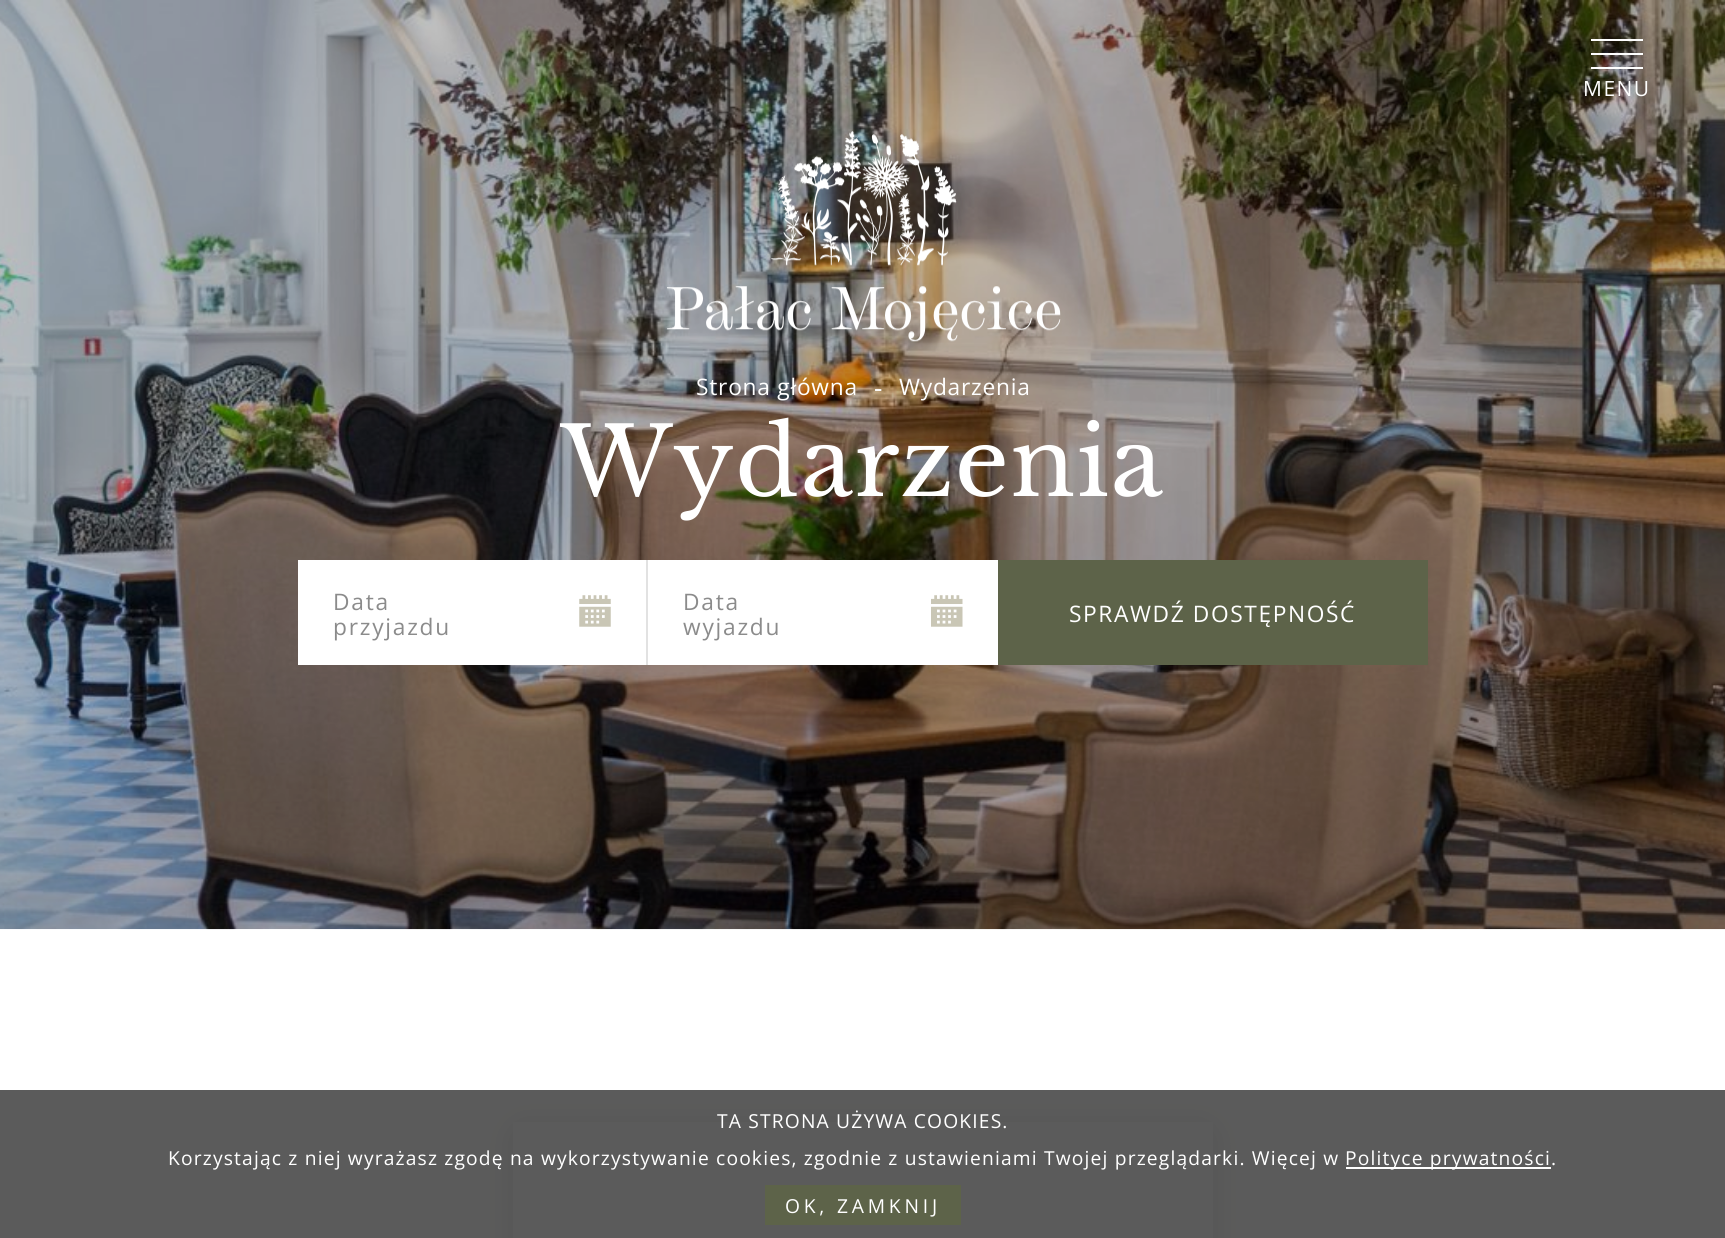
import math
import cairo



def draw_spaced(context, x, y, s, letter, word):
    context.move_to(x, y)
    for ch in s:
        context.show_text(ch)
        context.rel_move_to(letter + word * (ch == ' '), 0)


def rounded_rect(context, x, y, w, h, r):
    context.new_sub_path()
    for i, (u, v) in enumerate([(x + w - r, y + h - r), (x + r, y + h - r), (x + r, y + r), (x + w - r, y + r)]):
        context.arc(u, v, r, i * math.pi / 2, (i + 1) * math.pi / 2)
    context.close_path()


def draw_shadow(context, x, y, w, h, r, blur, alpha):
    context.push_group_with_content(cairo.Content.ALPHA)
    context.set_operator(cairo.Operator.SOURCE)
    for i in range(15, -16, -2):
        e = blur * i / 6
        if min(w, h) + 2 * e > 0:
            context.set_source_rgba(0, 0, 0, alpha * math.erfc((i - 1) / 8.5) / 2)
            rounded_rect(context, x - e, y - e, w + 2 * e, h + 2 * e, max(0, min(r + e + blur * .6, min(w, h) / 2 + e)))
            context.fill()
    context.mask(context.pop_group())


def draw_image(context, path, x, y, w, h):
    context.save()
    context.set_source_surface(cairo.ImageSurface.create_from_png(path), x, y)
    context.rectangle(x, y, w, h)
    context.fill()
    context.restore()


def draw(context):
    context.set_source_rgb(1, 1, 1)
    context.paint()
    draw_image(context, "images/2.png", 0, 0, 1725, 930)
    context.set_source_rgb(1, 1, 1)
    context.rectangle(1591, 39, 52, 2)
    context.fill()
    context.rectangle(1591, 53, 52, 2)
    context.fill()
    context.rectangle(1591, 67, 52, 2)
    context.fill()
    draw_image(context, "images/1.png", 667, 131, 394, 211)
    context.rectangle(298, 560, 348, 105)
    context.fill()
    context.set_source_rgb(226 / 255, 226 / 255, 226 / 255)
    context.rectangle(646, 560, 2, 105)
    context.fill()
    draw_image(context, "images/3.png", 579, 595, 32, 32)
    context.set_source_rgb(1, 1, 1)
    context.rectangle(648, 560, 350, 105)
    context.fill()
    draw_image(context, "images/4.png", 931, 595, 32, 32)
    context.set_source_rgb(93 / 255, 99 / 255, 73 / 255)
    context.rectangle(998, 560, 430, 105)
    context.fill()
    context.save()
    context.set_fill_rule(cairo.FillRule.EVEN_ODD)
    context.new_path()
    context.move_to(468, 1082)
    context.line_to(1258, 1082)
    context.line_to(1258, 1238)
    context.line_to(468, 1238)
    context.close_path()
    context.move_to(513, 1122)
    context.line_to(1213, 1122)
    context.line_to(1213, 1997)
    context.line_to(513, 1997)
    context.close_path()
    context.clip()
    context.set_source_rgb(145 / 255, 143 / 255, 111 / 255)
    draw_shadow(context, 522, 1136, 682, 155, 0, 17.5, 0.45)
    context.restore()
    context.set_source_rgba(51 / 255, 51 / 255, 51 / 255, 0.8)
    context.rectangle(0, 1090, 1725, 148)
    context.fill()
    context.set_source_rgb(1, 1, 1)
    context.rectangle(1346, 1167, 205, 2)
    context.fill()
    context.set_source_rgb(93 / 255, 99 / 255, 73 / 255)
    context.rectangle(765, 1185, 196, 40)
    context.fill()
    context.select_font_face("Open Sans")
    context.set_font_size(21)
    context.set_source_rgb(1, 1, 1)
    draw_spaced(context, 1583, 96, "MENU", 1.5, 0)
    context.set_font_size(22.75)
    draw_spaced(context, 696, 395, "Strona główna", 0.75, 0)
    context.set_font_size(26)
    context.move_to(874, 397)
    context.show_text("-")
    context.set_font_size(22.75)
    draw_spaced(context, 899, 395, "Wydarzenia", 0.75, 0)
    context.select_font_face("Libre Baskerville")
    context.set_font_size(94.5)
    draw_spaced(context, 561, 496, "Wydarzenia", 1.4, 0)
    context.select_font_face("Open Sans")
    context.set_font_size(22.75)
    context.set_source_rgb(139 / 255, 139 / 255, 139 / 255)
    draw_spaced(context, 333, 610, "Data", 1.75, 0)
    draw_spaced(context, 333, 635, "przyjazdu", 1.75, 0)
    draw_spaced(context, 683, 610, "Data", 1.75, 0)
    draw_spaced(context, 683, 635, "wyjazdu", 1.75, 0)
    context.set_source_rgb(1, 1, 1)
    draw_spaced(context, 1069, 622, "SPRAWDŹ DOSTĘPNOŚĆ", 1.6, 0)
    context.set_font_size(19.25)
    draw_spaced(context, 717, 1128, "TA STRONA UŻYWA COOKIES.", 1.16, 0)
    draw_spaced(context, 168, 1165, "Korzystając z niej wyrażasz zgodę na wykorzystywanie cookies, zgodnie z ustawieniami Twojej przeglądarki. Więcej w", 1.16, 0)
    draw_spaced(context, 1345, 1165, "Polityce prywatności.", 1.16, 0)
    draw_spaced(context, 785, 1213, "OK, ZAMKNIJ", 3.8, 0)


surface = cairo.ImageSurface(cairo.Format.RGB24, 1725, 1238)
context = cairo.Context(surface)
options = cairo.FontOptions()
options.set_hint_metrics(cairo.HintMetrics.OFF)
options.set_hint_style(cairo.HintStyle.NONE)
context.set_font_options(options)
context.set_miter_limit(4)
draw(context)
surface.write_to_png("out.png")
